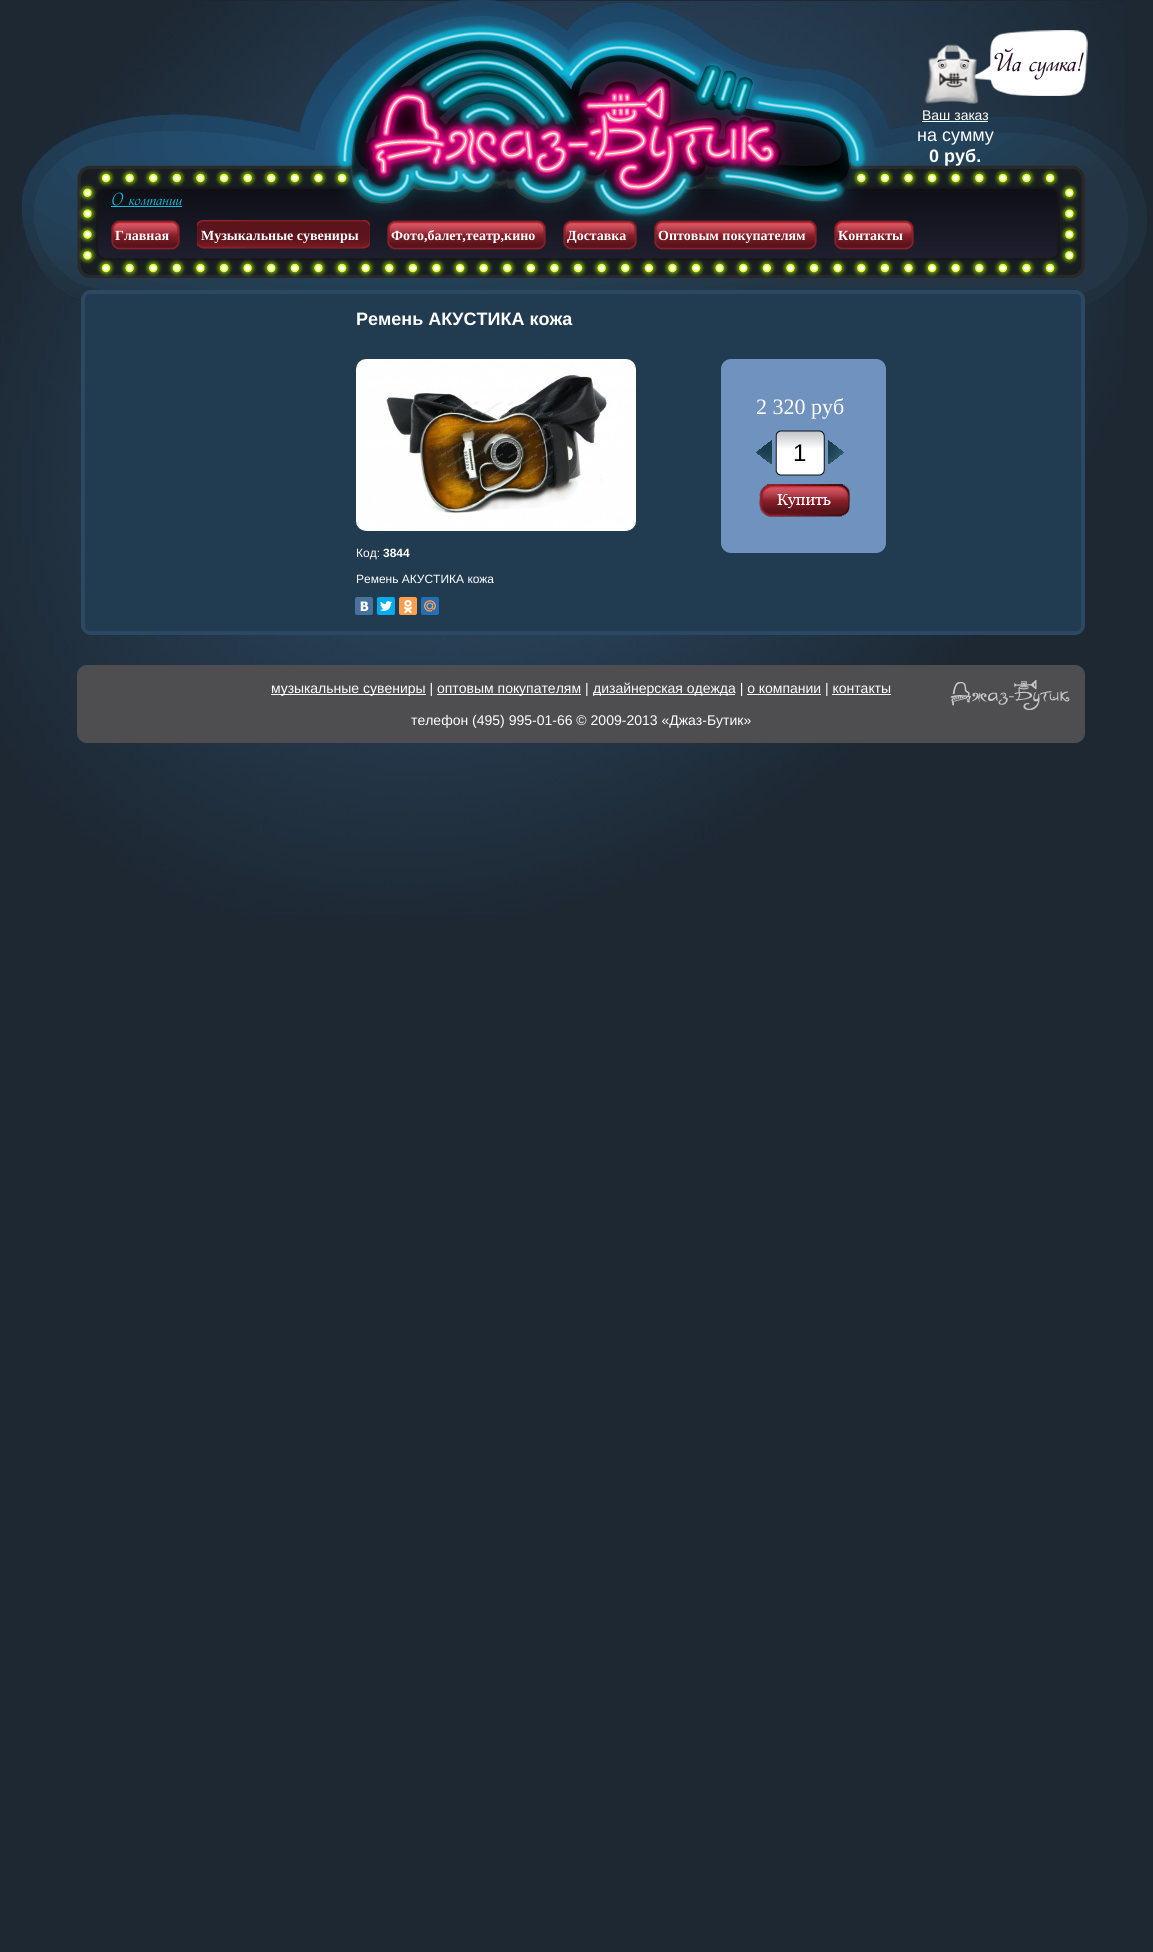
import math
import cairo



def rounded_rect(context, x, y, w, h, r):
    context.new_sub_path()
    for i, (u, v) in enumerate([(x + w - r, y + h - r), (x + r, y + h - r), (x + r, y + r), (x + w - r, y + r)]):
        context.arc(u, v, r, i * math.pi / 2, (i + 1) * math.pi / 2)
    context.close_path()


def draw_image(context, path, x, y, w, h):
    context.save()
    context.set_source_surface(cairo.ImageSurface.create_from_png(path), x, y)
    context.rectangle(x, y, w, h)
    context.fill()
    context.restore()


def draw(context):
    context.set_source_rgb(29 / 255, 40 / 255, 51 / 255)
    context.paint()
    draw_image(context, "images/1.png", 0, 0, 1125, 914)
    draw_image(context, "images/2.png", 22, 0, 1125, 306)
    draw_image(context, "images/3.png", 924, 30, 164, 74)
    context.set_source_rgb(1, 1, 1)
    context.rectangle(922, 121, 66, 1)
    context.fill()
    context.set_source_rgb(23 / 255, 191 / 255, 217 / 255)
    context.rectangle(111, 206, 71, 1)
    context.fill()
    draw_image(context, "images/4.png", 172, 220, 8, 30)
    draw_image(context, "images/5.png", 111, 220, 61, 30)
    draw_image(context, "images/6.png", 362, 220, 8, 29)
    draw_image(context, "images/7.png", 197, 220, 165, 29)
    draw_image(context, "images/8.png", 538, 220, 8, 30)
    draw_image(context, "images/9.png", 387, 220, 151, 30)
    draw_image(context, "images/10.png", 629, 220, 8, 30)
    draw_image(context, "images/11.png", 563, 220, 66, 30)
    draw_image(context, "images/12.png", 809, 220, 8, 30)
    draw_image(context, "images/13.png", 654, 220, 155, 30)
    draw_image(context, "images/4.png", 906, 220, 8, 30)
    draw_image(context, "images/14.png", 834, 220, 72, 30)
    rounded_rect(context, 83, 292, 1000, 341, 8)
    context.set_source_rgb(44 / 255, 73 / 255, 100 / 255)
    context.set_line_width(4)
    context.stroke()
    context.set_source_rgb(33 / 255, 59 / 255, 81 / 255)
    rounded_rect(context, 85, 294, 996, 337, 5)
    context.fill()
    draw_image(context, "images/15.png", 356, 359, 280, 172)
    context.set_source_rgb(112 / 255, 146 / 255, 191 / 255)
    rounded_rect(context, 721, 359, 165, 194, 10)
    context.fill()
    draw_image(context, "images/16.png", 756, 440, 16, 24)
    draw_image(context, "images/17.png", 775, 430, 50, 46)
    draw_image(context, "images/18.png", 828, 440, 16, 24)
    draw_image(context, "images/19.png", 759, 484, 91, 33)
    context.set_source_rgb(72 / 255, 114 / 255, 158 / 255)
    rounded_rect(context, 355, 597, 18, 18, 2)
    context.fill()
    draw_image(context, "images/20.png", 360, 601, 9, 10)
    context.set_source_rgb(0, 172 / 255, 237 / 255)
    rounded_rect(context, 377, 597, 18, 18, 2)
    context.fill()
    draw_image(context, "images/21.png", 380, 601, 12, 10)
    context.set_source_rgb(1, 159 / 255, 77 / 255)
    rounded_rect(context, 399, 597, 18, 18, 2)
    context.fill()
    draw_image(context, "images/22.png", 404, 600, 8, 13)
    context.set_source_rgb(34 / 255, 110 / 255, 183 / 255)
    rounded_rect(context, 421, 597, 18, 18, 2)
    context.fill()
    draw_image(context, "images/23.png", 424, 600, 12, 12)
    context.set_source_rgb(78 / 255, 78 / 255, 80 / 255)
    rounded_rect(context, 77, 665, 1008, 78, 10)
    context.fill()
    context.set_source_rgb(1, 1, 1)
    context.rectangle(271, 694, 155, 1)
    context.fill()
    context.rectangle(437, 694, 144, 1)
    context.fill()
    context.rectangle(593, 694, 142, 1)
    context.fill()
    context.rectangle(747, 694, 74, 1)
    context.fill()
    context.rectangle(832, 694, 59, 1)
    context.fill()
    draw_image(context, "images/24.png", 950, 680, 120, 30)
    context.select_font_face("Liberation Sans")
    context.set_font_size(14)
    context.move_to(922, 120)
    context.show_text("Ваш заказ")
    context.set_font_size(18)
    context.move_to(917, 141)
    context.show_text("на сумму")
    context.select_font_face("Liberation Sans", cairo.FontSlant.NORMAL, cairo.FontWeight.BOLD)
    context.move_to(929, 162)
    context.show_text("0 руб.")
    context.select_font_face("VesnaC")
    context.set_font_size(15)
    context.set_source_rgb(23 / 255, 191 / 255, 217 / 255)
    context.move_to(111, 205)
    context.show_text("О компании")
    context.select_font_face("Liberation Serif", cairo.FontSlant.NORMAL, cairo.FontWeight.BOLD)
    context.set_font_size(14)
    context.set_source_rgb(1, 1, 1)
    context.move_to(115, 240)
    context.show_text("Главная")
    context.move_to(201, 240)
    context.show_text("Музыкальные сувениры")
    context.move_to(391, 240)
    context.show_text("Фото,балет,театр,кино")
    context.move_to(567, 240)
    context.show_text("Доставка")
    context.move_to(658, 240)
    context.show_text("Оптовым покупателям")
    context.move_to(838, 240)
    context.show_text("Контакты")
    context.select_font_face("Liberation Sans", cairo.FontSlant.NORMAL, cairo.FontWeight.BOLD)
    context.set_font_size(18)
    context.move_to(356, 325)
    context.show_text("Ремень АКУСТИКА кожа")
    context.select_font_face("Liberation Sans")
    context.set_font_size(12)
    context.move_to(356, 557)
    context.show_text("Код:")
    context.select_font_face("Liberation Sans", cairo.FontSlant.NORMAL, cairo.FontWeight.BOLD)
    context.move_to(383, 557)
    context.show_text("3844")
    context.select_font_face("Liberation Serif")
    context.set_font_size(22)
    context.move_to(756, 414)
    context.show_text("2 320 руб")
    context.select_font_face("Liberation Sans")
    context.set_font_size(24)
    context.set_source_rgb(0, 0, 0)
    context.move_to(793, 461)
    context.show_text("1")
    context.set_font_size(12)
    context.set_source_rgb(1, 1, 1)
    context.move_to(356, 583)
    context.show_text("Ремень АКУСТИКА кожа")
    context.set_font_size(14)
    context.move_to(271, 693)
    context.show_text("музыкальные сувениры |")
    context.move_to(437, 693)
    context.show_text("оптовым покупателям |")
    context.move_to(593, 693)
    context.show_text("дизайнерская одежда | о компании | контакты")
    context.move_to(411, 725)
    context.show_text("телефон (495) 995-01-66 © 2009-2013 «Джаз-Бутик»")


surface = cairo.ImageSurface(cairo.Format.RGB24, 1153, 1952)
context = cairo.Context(surface)
options = cairo.FontOptions()
options.set_hint_metrics(cairo.HintMetrics.OFF)
options.set_hint_style(cairo.HintStyle.NONE)
context.set_font_options(options)
context.set_miter_limit(4)
draw(context)
surface.write_to_png("out.png")
